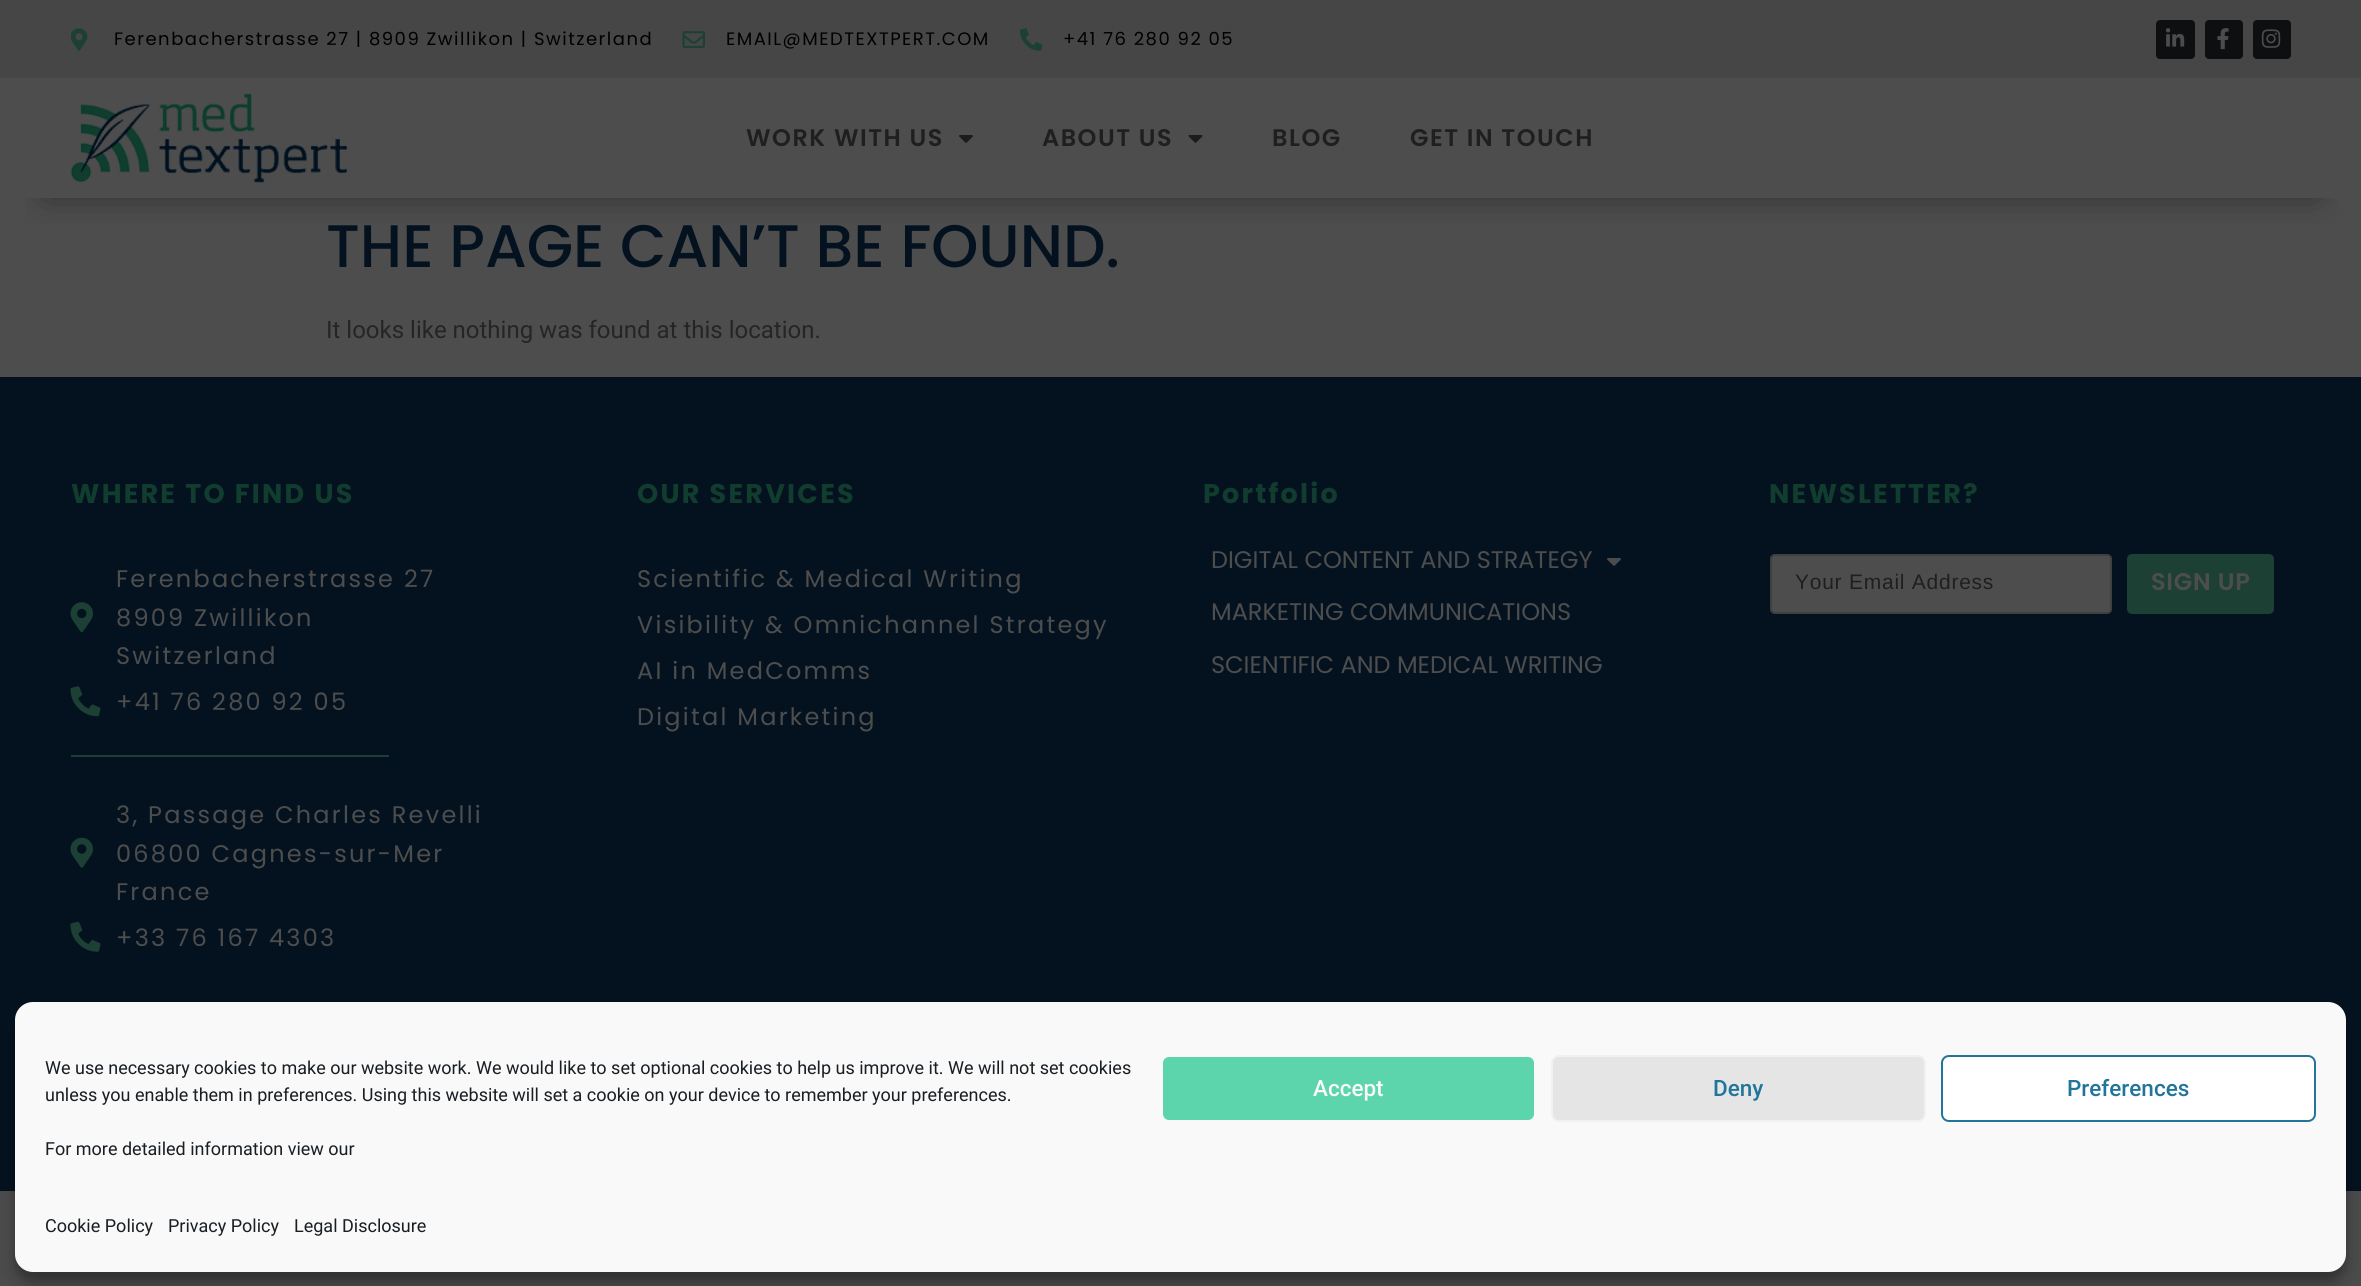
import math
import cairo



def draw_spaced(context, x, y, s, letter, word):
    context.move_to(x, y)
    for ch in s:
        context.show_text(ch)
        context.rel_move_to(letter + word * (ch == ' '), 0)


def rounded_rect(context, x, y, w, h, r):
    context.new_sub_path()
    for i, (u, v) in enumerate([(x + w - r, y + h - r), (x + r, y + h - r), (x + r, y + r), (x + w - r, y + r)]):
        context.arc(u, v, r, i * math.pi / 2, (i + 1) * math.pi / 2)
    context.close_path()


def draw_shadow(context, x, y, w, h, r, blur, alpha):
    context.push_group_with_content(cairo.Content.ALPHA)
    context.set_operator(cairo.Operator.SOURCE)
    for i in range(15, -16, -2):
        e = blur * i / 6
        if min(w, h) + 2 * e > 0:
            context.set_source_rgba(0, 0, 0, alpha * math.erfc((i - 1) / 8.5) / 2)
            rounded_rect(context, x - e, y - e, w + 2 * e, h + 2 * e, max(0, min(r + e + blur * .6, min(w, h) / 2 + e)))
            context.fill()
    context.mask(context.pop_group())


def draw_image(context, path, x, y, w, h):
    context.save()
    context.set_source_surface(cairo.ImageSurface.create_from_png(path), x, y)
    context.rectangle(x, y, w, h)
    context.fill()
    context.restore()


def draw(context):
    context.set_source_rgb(77 / 255, 77 / 255, 77 / 255)
    context.paint()
    context.set_source_rgb(70 / 255, 70 / 255, 71 / 255)
    context.rectangle(0, 0, 2361, 78)
    context.fill()
    draw_image(context, "images/1.png", 71, 28, 17, 23)
    draw_image(context, "images/2.png", 682, 31, 23, 17)
    draw_image(context, "images/3.png", 1020, 28, 23, 23)
    context.set_source_rgb(14 / 255, 15 / 255, 17 / 255)
    rounded_rect(context, 2156, 20, 39, 39, 4)
    context.fill()
    draw_image(context, "images/4.png", 2165, 28, 20, 19)
    rounded_rect(context, 2205, 20, 38, 39, 4)
    context.fill()
    draw_image(context, "images/5.png", 2217, 28, 12, 22)
    rounded_rect(context, 2253, 20, 38, 39, 4)
    context.fill()
    draw_image(context, "images/6.png", 2261, 29, 20, 19)
    context.save()
    context.rectangle(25, 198, 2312, 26)
    context.clip()
    context.set_source_rgb(0, 0, 0)
    draw_shadow(context, 47, 164, 2268, 27, 0, 19, 0.5)
    context.restore()
    draw_image(context, "images/7.png", 70, 93, 277, 90)
    draw_image(context, "images/8.png", 959, 135, 14, 8)
    draw_image(context, "images/9.png", 1188, 135, 15, 8)
    context.set_source_rgb(4 / 255, 18 / 255, 32 / 255)
    context.rectangle(0, 377, 2361, 814)
    context.fill()
    draw_image(context, "images/10.png", 70, 602, 23, 31)
    draw_image(context, "images/11.png", 70, 686, 31, 31)
    context.set_source_rgb(28 / 255, 64 / 255, 52 / 255)
    context.rectangle(71, 755, 318, 2)
    context.fill()
    draw_image(context, "images/12.png", 70, 837, 23, 31)
    draw_image(context, "images/13.png", 70, 921, 31, 31)
    draw_image(context, "images/14.png", 1607, 558, 14, 8)
    context.set_source_rgb(77 / 255, 77 / 255, 77 / 255)
    rounded_rect(context, 1770, 554, 342, 60, 5)
    context.fill()
    rounded_rect(context, 1771, 555, 340, 58, 4)
    context.set_source_rgba(1 / 255, 0, 0, 0.17)
    context.stroke()
    context.set_source_rgb(28 / 255, 64 / 255, 52 / 255)
    rounded_rect(context, 2127, 554, 147, 60, 5)
    context.fill()
    context.set_source_rgb(0, 0, 0)
    draw_shadow(context, 15, 1011, 2331, 270, 18, 4.5, 0.23)
    draw_shadow(context, 15, 1017, 2331, 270, 18, 15, 0.19)
    context.set_source_rgb(249 / 255, 249 / 255, 249 / 255)
    rounded_rect(context, 15, 1002, 2331, 270, 18)
    context.fill()
    context.set_source_rgb(92 / 255, 213 / 255, 173 / 255)
    rounded_rect(context, 1162, 1056, 373, 65, 7)
    context.fill_preserve()
    context.set_source_rgb(249 / 255, 249 / 255, 249 / 255)
    context.stroke()
    context.set_source_rgb(229 / 255, 229 / 255, 229 / 255)
    rounded_rect(context, 1552, 1056, 373, 65, 7)
    context.fill_preserve()
    context.set_source_rgb(241 / 255, 241 / 255, 241 / 255)
    context.stroke()
    context.set_source_rgb(1, 1, 1)
    rounded_rect(context, 1942, 1056, 373, 65, 7)
    context.fill_preserve()
    context.set_source_rgb(33 / 255, 117 / 255, 155 / 255)
    context.stroke()
    context.select_font_face("Poppins")
    context.set_font_size(18)
    context.set_source_rgb(0, 0, 0)
    draw_spaced(context, 114, 45, "Ferenbacherstrasse 27 | 8909 Zwillikon | Switzerland", 1.5, 0)
    draw_spaced(context, 726, 45, "EMAIL@MEDTEXTPERT.COM", 1.5, 0)
    draw_spaced(context, 1063, 45, "+41 76 280 92 05", 1.5, 0)
    context.select_font_face("Poppins SemiBold")
    context.set_font_size(24)
    context.set_source_rgb(31 / 255, 31 / 255, 31 / 255)
    draw_spaced(context, 746, 146, "WORK WITH US", 1.5, 0)
    draw_spaced(context, 1042, 146, "ABOUT US", 1.5, 0)
    draw_spaced(context, 1272, 146, "BLOG", 1.5, 0)
    draw_spaced(context, 1410, 146, "GET IN TOUCH", 1.5, 0)
    context.select_font_face("Poppins Medium")
    context.set_font_size(60)
    context.set_source_rgb(4 / 255, 18 / 255, 32 / 255)
    context.move_to(326, 267)
    context.show_text("THE PAGE CAN’T BE FOUND.")
    context.select_font_face("Roboto")
    context.set_font_size(24)
    context.set_source_rgb(37 / 255, 37 / 255, 37 / 255)
    context.move_to(326, 338)
    context.show_text("It looks like nothing was found at this location.")
    context.select_font_face("Poppins", cairo.FontSlant.NORMAL, cairo.FontWeight.BOLD)
    context.set_font_size(27)
    context.set_source_rgb(16 / 255, 61 / 255, 46 / 255)
    draw_spaced(context, 71, 503, "WHERE TO FIND US", 2.25, 0)
    context.select_font_face("Poppins")
    context.set_font_size(24)
    context.set_source_rgb(77 / 255, 77 / 255, 77 / 255)
    draw_spaced(context, 116, 587, "Ferenbacherstrasse 27", 2.25, 0)
    draw_spaced(context, 116, 626, "8909 Zwillikon", 2.25, 0)
    draw_spaced(context, 116, 664, "Switzerland", 2.25, 0)
    draw_spaced(context, 116, 710, "+41 76 280 92 05", 2.25, 0)
    draw_spaced(context, 116, 823, "3, Passage Charles Revelli", 2.25, 0)
    draw_spaced(context, 116, 862, "06800 Cagnes-sur-Mer", 2.25, 0)
    draw_spaced(context, 116, 900, "France", 2.25, 0)
    draw_spaced(context, 116, 946, "+33 76 167 4303", 2.25, 0)
    context.select_font_face("Poppins", cairo.FontSlant.NORMAL, cairo.FontWeight.BOLD)
    context.set_font_size(27)
    context.set_source_rgb(16 / 255, 61 / 255, 46 / 255)
    draw_spaced(context, 637, 503, "OUR SERVICES", 2.25, 0)
    context.select_font_face("Poppins")
    context.set_font_size(24)
    context.set_source_rgb(77 / 255, 77 / 255, 77 / 255)
    draw_spaced(context, 637, 587, "Scientific & Medical Writing", 2.25, 0)
    draw_spaced(context, 637, 633, "Visibility & Omnichannel Strategy", 2.25, 0)
    draw_spaced(context, 637, 679, "AI in MedComms", 2.25, 0)
    draw_spaced(context, 637, 725, "Digital Marketing", 2.25, 0)
    context.select_font_face("Poppins", cairo.FontSlant.NORMAL, cairo.FontWeight.BOLD)
    context.set_font_size(27)
    context.set_source_rgb(16 / 255, 61 / 255, 46 / 255)
    draw_spaced(context, 1203, 503, "Portfolio", 2.25, 0)
    context.select_font_face("Poppins")
    context.set_font_size(24)
    context.set_source_rgb(77 / 255, 77 / 255, 77 / 255)
    context.move_to(1211, 568)
    context.show_text("DIGITAL CONTENT AND STRATEGY")
    context.move_to(1211, 620)
    context.show_text("MARKETING COMMUNICATIONS")
    context.move_to(1211, 673)
    context.show_text("SCIENTIFIC AND MEDICAL WRITING")
    context.select_font_face("Poppins", cairo.FontSlant.NORMAL, cairo.FontWeight.BOLD)
    context.set_font_size(27)
    context.set_source_rgb(16 / 255, 61 / 255, 46 / 255)
    draw_spaced(context, 1769, 503, "NEWSLETTER?", 2.25, 0)
    context.select_font_face("Liberation Sans")
    context.set_font_size(21)
    context.set_source_rgb(31 / 255, 31 / 255, 31 / 255)
    draw_spaced(context, 1795, 589, "Your Email Address", 0.75, 0)
    context.select_font_face("Poppins SemiBold")
    context.set_font_size(24)
    context.set_source_rgb(77 / 255, 77 / 255, 77 / 255)
    draw_spaced(context, 2151, 590, "SIGN UP", 0.75, 0)
    context.select_font_face("Roboto")
    context.set_font_size(18)
    context.set_source_rgb(25 / 255, 30 / 255, 35 / 255)
    context.move_to(45, 1074)
    context.show_text("We use necessary cookies to make our website work. We would like to set optional cookies to help us improve it. We will not set cookies")
    context.move_to(45, 1101)
    context.show_text("unless you enable them in preferences. Using this website will set a cookie on your device to remember your preferences.")
    context.move_to(45, 1155)
    context.show_text("For more detailed information view our")
    context.select_font_face("Roboto Medium")
    context.set_font_size(22.5)
    context.set_source_rgb(249 / 255, 249 / 255, 249 / 255)
    context.move_to(1313, 1096)
    context.show_text("Accept")
    context.set_source_rgb(33 / 255, 117 / 255, 155 / 255)
    context.move_to(1713, 1096)
    context.show_text("Deny")
    context.move_to(2067, 1096)
    context.show_text("Preferences")
    context.select_font_face("Roboto")
    context.set_font_size(18)
    context.set_source_rgb(25 / 255, 30 / 255, 35 / 255)
    context.move_to(45, 1232)
    context.show_text("Cookie Policy")
    context.move_to(168, 1232)
    context.show_text("Privacy Policy")
    context.move_to(294, 1232)
    context.show_text("Legal Disclosure")


surface = cairo.ImageSurface(cairo.Format.RGB24, 2361, 1286)
context = cairo.Context(surface)
options = cairo.FontOptions()
options.set_hint_metrics(cairo.HintMetrics.OFF)
options.set_hint_style(cairo.HintStyle.NONE)
context.set_font_options(options)
context.set_miter_limit(4)
draw(context)
surface.write_to_png("out.png")
